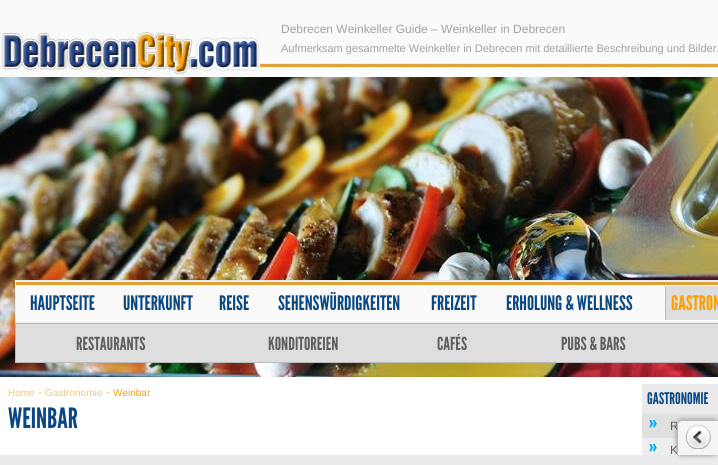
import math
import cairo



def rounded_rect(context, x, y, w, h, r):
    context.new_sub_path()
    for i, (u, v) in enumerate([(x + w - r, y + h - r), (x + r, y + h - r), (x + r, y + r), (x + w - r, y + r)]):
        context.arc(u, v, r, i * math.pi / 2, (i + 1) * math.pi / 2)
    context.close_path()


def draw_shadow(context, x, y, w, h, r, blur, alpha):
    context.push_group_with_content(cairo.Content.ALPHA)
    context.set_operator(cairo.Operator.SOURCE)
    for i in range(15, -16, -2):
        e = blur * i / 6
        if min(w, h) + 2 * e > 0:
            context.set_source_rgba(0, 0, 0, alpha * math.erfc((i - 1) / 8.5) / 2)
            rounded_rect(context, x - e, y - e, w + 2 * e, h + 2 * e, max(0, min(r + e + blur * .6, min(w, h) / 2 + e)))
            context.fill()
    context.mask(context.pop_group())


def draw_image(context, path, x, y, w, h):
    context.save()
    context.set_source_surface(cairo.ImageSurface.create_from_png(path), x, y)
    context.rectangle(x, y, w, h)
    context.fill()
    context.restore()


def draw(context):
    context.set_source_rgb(250 / 255, 250 / 255, 250 / 255)
    context.paint()
    draw_image(context, "images/1.png", 0, 27, 260, 50)
    draw_image(context, "images/2.png", 260, 63, 458, 14)
    draw_image(context, "images/3.png", 0, 77, 718, 300)
    context.set_source_rgb(250 / 255, 250 / 255, 250 / 255)
    context.rectangle(16, 286, 702, 36)
    context.fill()
    draw_image(context, "images/4.png", 16, 281, 702, 5)
    context.set_source_rgb(234 / 255, 234 / 255, 234 / 255)
    context.rectangle(15, 280, 703, 1)
    context.fill()
    context.rectangle(15, 322, 703, 1)
    context.fill()
    context.rectangle(15, 280, 1, 43)
    context.fill()
    context.set_source_rgb(222 / 255, 222 / 255, 222 / 255)
    context.rectangle(666, 286, 52, 34)
    context.fill()
    context.set_source_rgb(187 / 255, 187 / 255, 187 / 255)
    context.rectangle(665, 286, 1, 34)
    context.fill()
    context.set_source_rgb(222 / 255, 222 / 255, 222 / 255)
    context.rectangle(16, 324, 702, 38)
    context.fill()
    context.set_source_rgb(187 / 255, 187 / 255, 187 / 255)
    context.rectangle(15, 323, 703, 1)
    context.fill()
    context.rectangle(15, 362, 703, 1)
    context.fill()
    context.rectangle(15, 323, 1, 40)
    context.fill()
    context.set_source_rgb(1, 1, 1)
    context.rectangle(0, 378, 718, 77)
    context.fill()
    context.set_source_rgb(234 / 255, 234 / 255, 234 / 255)
    context.rectangle(642, 384, 76, 30)
    context.fill()
    context.set_source_rgb(224 / 255, 224 / 255, 224 / 255)
    context.rectangle(642, 414, 76, 24)
    context.fill()
    draw_image(context, "images/5.png", 649, 420, 8, 8)
    context.set_source_rgb(238 / 255, 238 / 255, 238 / 255)
    context.rectangle(642, 438, 35, 17)
    context.fill()
    draw_image(context, "images/6.png", 649, 444, 8, 8)
    context.set_source_rgb(235 / 255, 235 / 255, 235 / 255)
    context.rectangle(0, 455, 718, 10)
    context.fill()
    context.set_source_rgb(136 / 255, 136 / 255, 136 / 255)
    draw_shadow(context, 677, 420, 41, 35, 5, 2.5, 1)
    context.select_font_face("Liberation Sans")
    context.set_font_size(12)
    context.set_source_rgb(161 / 255, 161 / 255, 161 / 255)
    context.move_to(281, 33)
    context.show_text("Debrecen Weinkeller Guide – Weinkeller in Debrecen")
    context.set_font_size(11)
    context.move_to(281, 52)
    context.show_text("Aufmerksam gesammelte Weinkeller in Debrecen mit detaillierte Beschreibung und Bilder.")
    context.select_font_face("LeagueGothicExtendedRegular")
    context.set_font_size(20)
    context.set_source_rgb(11 / 255, 72 / 255, 131 / 255)
    context.move_to(30, 310)
    context.show_text("HAUPTSEITE")
    context.move_to(123, 310)
    context.show_text("UNTERKUNFT")
    context.move_to(219, 310)
    context.show_text("REISE")
    context.move_to(278, 310)
    context.show_text("SEHENSWÜRDIGKEITEN")
    context.move_to(431, 310)
    context.show_text("FREIZEIT")
    context.move_to(506, 310)
    context.show_text("ERHOLUNG & WELLNESS")
    context.set_source_rgb(250 / 255, 159 / 255, 0)
    context.move_to(671, 310)
    context.show_text("GASTRON")
    context.set_font_size(18)
    context.set_source_rgb(94 / 255, 94 / 255, 94 / 255)
    context.move_to(76, 350)
    context.show_text("RESTAURANTS")
    context.move_to(268, 350)
    context.show_text("KONDITOREIEN")
    context.move_to(437, 350)
    context.show_text("CAFÉS")
    context.move_to(561, 350)
    context.show_text("PUBS & BARS")
    context.select_font_face("Liberation Sans")
    context.set_font_size(10)
    context.set_source_rgb(251 / 255, 199 / 255, 107 / 255)
    context.move_to(8, 396)
    context.show_text("Home")
    context.set_font_size(12)
    context.move_to(38, 396)
    context.show_text("-")
    context.set_font_size(10)
    context.move_to(45, 396)
    context.show_text("Gastronomie")
    context.set_font_size(12)
    context.move_to(106, 396)
    context.show_text("-")
    context.set_font_size(10)
    context.set_source_rgb(250 / 255, 159 / 255, 0)
    context.move_to(113, 396)
    context.show_text("Weinbar")
    context.select_font_face("LeagueGothicExtendedRegular")
    context.set_font_size(28)
    context.set_source_rgb(11 / 255, 72 / 255, 131 / 255)
    context.move_to(8, 428)
    context.show_text("WEINBAR")
    context.set_font_size(16)
    context.move_to(647, 404)
    context.show_text("GASTRONOMIE")
    context.select_font_face("Liberation Sans")
    context.set_font_size(12)
    context.set_source_rgb(94 / 255, 94 / 255, 94 / 255)
    context.move_to(670, 430)
    context.show_text("R")
    context.move_to(670, 454)
    context.show_text("K")
    context.set_source_rgb(244 / 255, 245 / 255, 246 / 255)
    context.new_path()
    context.move_to(682, 420)
    context.line_to(718, 420)
    context.line_to(718, 455)
    context.line_to(677, 455)
    context.line_to(677, 425)
    context.curve_to(677, 422, 679, 420, 682, 420)
    context.close_path()
    context.fill()
    context.set_source_rgb(187 / 255, 187 / 255, 187 / 255)
    context.set_fill_rule(cairo.FillRule.EVEN_ODD)
    context.new_path()
    context.move_to(682, 420)
    context.line_to(718, 420)
    context.line_to(718, 455)
    context.line_to(677, 455)
    context.line_to(677, 425)
    context.curve_to(677, 422, 679, 420, 682, 420)
    context.close_path()
    context.move_to(682, 421)
    context.line_to(718, 421)
    context.line_to(718, 455)
    context.line_to(678, 455)
    context.line_to(678, 425)
    context.curve_to(678, 423, 680, 421, 682, 421)
    context.close_path()
    context.fill()
    draw_image(context, "images/7.png", 685, 425, 26, 24)


surface = cairo.ImageSurface(cairo.Format.RGB24, 718, 465)
context = cairo.Context(surface)
options = cairo.FontOptions()
options.set_hint_metrics(cairo.HintMetrics.OFF)
options.set_hint_style(cairo.HintStyle.NONE)
context.set_font_options(options)
context.set_miter_limit(4)
draw(context)
surface.write_to_png("out.png")
